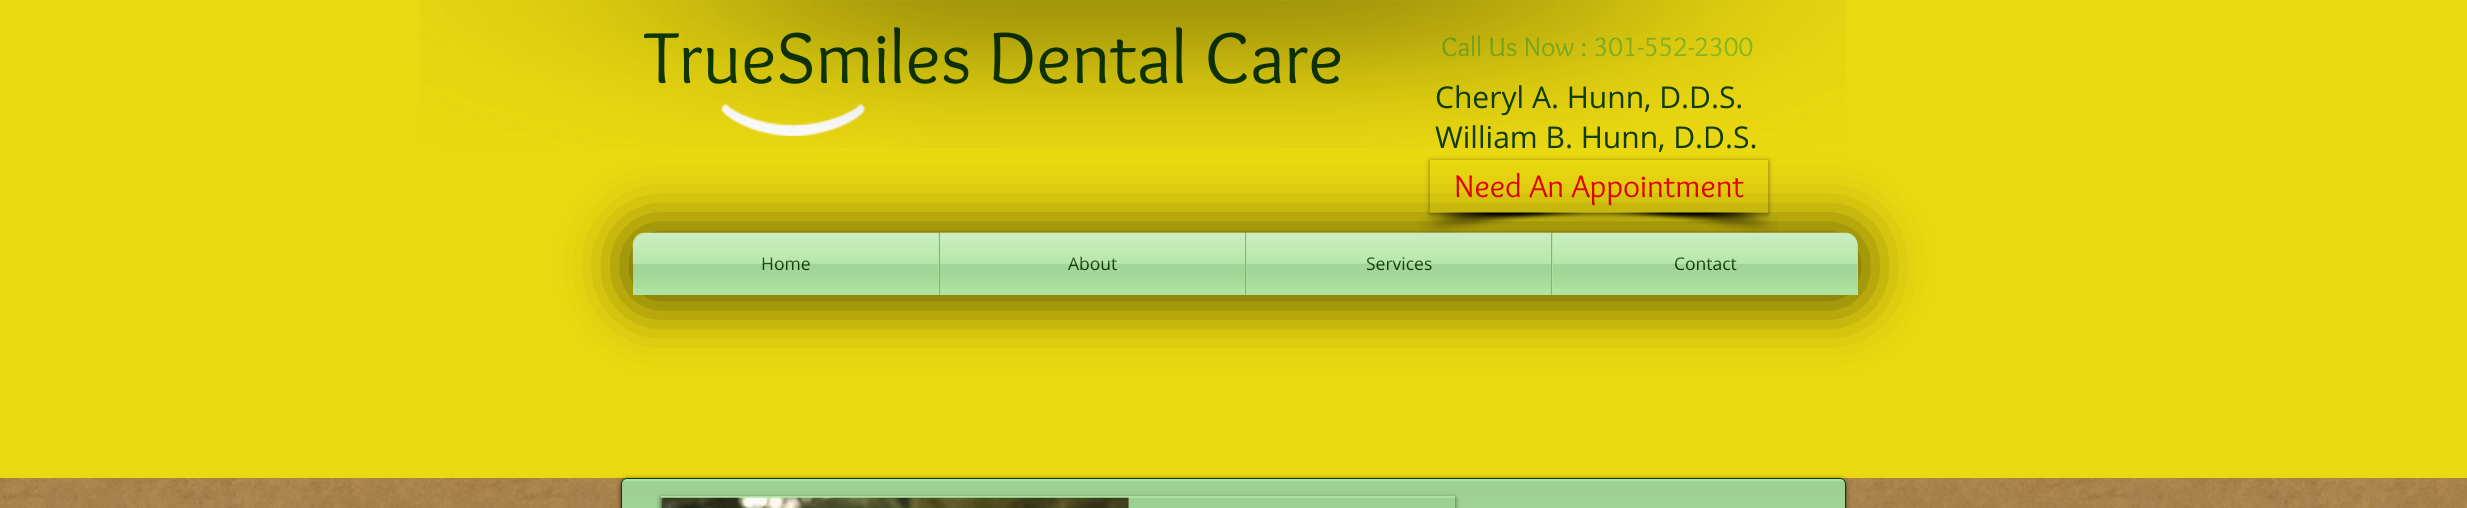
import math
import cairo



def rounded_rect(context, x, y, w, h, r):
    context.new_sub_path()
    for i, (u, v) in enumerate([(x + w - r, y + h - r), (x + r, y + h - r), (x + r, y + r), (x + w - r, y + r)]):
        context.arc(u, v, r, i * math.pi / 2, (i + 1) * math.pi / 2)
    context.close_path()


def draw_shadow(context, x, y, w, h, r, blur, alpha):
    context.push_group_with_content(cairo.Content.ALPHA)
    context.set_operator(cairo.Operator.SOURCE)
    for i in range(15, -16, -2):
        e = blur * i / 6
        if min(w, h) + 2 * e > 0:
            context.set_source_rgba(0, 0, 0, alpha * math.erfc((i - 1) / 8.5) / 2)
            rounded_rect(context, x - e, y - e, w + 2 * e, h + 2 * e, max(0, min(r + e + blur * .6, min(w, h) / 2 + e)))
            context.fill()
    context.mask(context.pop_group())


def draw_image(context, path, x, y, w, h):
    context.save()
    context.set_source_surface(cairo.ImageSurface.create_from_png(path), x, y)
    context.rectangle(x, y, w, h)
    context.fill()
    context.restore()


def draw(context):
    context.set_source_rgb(1, 1, 1)
    context.paint()
    context.set_source_rgb(234 / 255, 216 / 255, 16 / 255)
    context.rectangle(0, 0, 2467, 478)
    context.fill()
    draw_image(context, "images/2.png", 721, 103, 145, 34)
    draw_image(context, "images/3.png", 1419, 212, 186, 21)
    draw_image(context, "images/4.png", 1593, 212, 185, 21)
    context.save()
    context.set_fill_rule(cairo.FillRule.EVEN_ODD)
    context.new_path()
    context.move_to(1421, 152)
    context.line_to(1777, 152)
    context.line_to(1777, 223)
    context.line_to(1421, 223)
    context.close_path()
    context.move_to(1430, 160)
    context.line_to(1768, 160)
    context.line_to(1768, 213)
    context.line_to(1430, 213)
    context.close_path()
    context.clip()
    context.set_source_rgb(0, 0, 0)
    draw_shadow(context, 1430, 161, 338, 53, 0, 2.5, 0.49)
    context.restore()
    draw_image(context, "images/12.png", 0, 478, 2467, 30)
    context.set_source_rgb(0, 0, 0)
    draw_shadow(context, 621, 479, 1225, 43, 6, 2.5, 0.6)
    context.set_source_rgb(174 / 255, 228 / 255, 160 / 255)
    rounded_rect(context, 621, 478, 1225, 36, 6)
    context.fill()
    draw_image(context, "images/10.png", 621, 481, 1225, 27)
    rounded_rect(context, 621.5, 478.5, 1224, 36, 5.5)
    context.set_source_rgb(16 / 255, 58 / 255, 6 / 255)
    context.set_line_width(1)
    context.stroke()
    context.set_source_rgb(0, 0, 0)
    draw_shadow(context, 661, 498, 794, 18, 0, 2.5, 0.6)
    context.set_source_rgb(174 / 255, 228 / 255, 160 / 255)
    context.rectangle(661, 496, 794, 2)
    context.fill()
    context.set_source_rgb(158 / 255, 207 / 255, 146 / 255)
    context.rectangle(661, 498, 794, 10)
    context.fill()
    draw_image(context, "images/11.png", 661, 497, 468, 11)
    context.select_font_face("Overlock")
    context.set_font_size(75)
    context.set_source_rgb(16 / 255, 58 / 255, 6 / 255)
    context.move_to(644, 83)
    context.show_text("TrueSmiles Dental Care")
    context.set_font_size(27.5)
    context.set_source_rgb(137 / 255, 191 / 255, 36 / 255)
    context.move_to(1441, 56)
    context.show_text("Call Us Now : 301-552-2300")
    draw_image(context, "images/1.png", 420, 0, 1426, 148)
    context.select_font_face("Open Sans")
    context.set_font_size(30)
    context.set_source_rgb(16 / 255, 58 / 255, 6 / 255)
    context.move_to(1435, 108)
    context.show_text("Cheryl A. Hunn, D.D.S.")
    context.move_to(1435, 148)
    context.show_text("William B. Hunn, D.D.S.")
    context.select_font_face("Overlock")
    context.set_font_size(32.5)
    context.set_source_rgb(237 / 255, 2 / 255, 2 / 255)
    context.move_to(1454, 197)
    context.show_text("Need An Appointment")
    context.set_source_rgb(0, 0, 0)
    draw_shadow(context, 624, 226, 1242, 80, 21, 28, 0.6)
    draw_image(context, "images/5.png", 632, 232, 1226, 32)
    context.set_source_rgb(174 / 255, 228 / 255, 160 / 255)
    context.new_path()
    context.move_to(646, 233)
    context.line_to(939, 233)
    context.line_to(939, 295)
    context.line_to(633, 295)
    context.line_to(633, 246)
    context.curve_to(633, 239, 639, 233, 646, 233)
    context.close_path()
    context.fill()
    context.select_font_face("Open Sans")
    context.set_font_size(17.5)
    context.set_source_rgb(16 / 255, 58 / 255, 6 / 255)
    context.move_to(761, 270)
    context.show_text("Home")
    draw_image(context, "images/6.png", 632, 232, 307, 57)
    context.set_source_rgb(174 / 255, 228 / 255, 160 / 255)
    context.rectangle(940, 233, 305, 62)
    context.fill()
    context.set_source_rgb(137 / 255, 191 / 255, 36 / 255)
    context.rectangle(939, 233, 1, 62)
    context.fill()
    context.set_source_rgb(16 / 255, 58 / 255, 6 / 255)
    context.move_to(1068, 270)
    context.show_text("About")
    draw_image(context, "images/7.png", 940, 232, 305, 57)
    context.set_source_rgb(174 / 255, 228 / 255, 160 / 255)
    context.rectangle(1246, 233, 305, 62)
    context.fill()
    context.set_source_rgb(137 / 255, 191 / 255, 36 / 255)
    context.rectangle(1245, 233, 1, 62)
    context.fill()
    context.set_source_rgb(16 / 255, 58 / 255, 6 / 255)
    context.move_to(1366, 270)
    context.show_text("Services")
    draw_image(context, "images/8.png", 1246, 232, 306, 57)
    context.set_source_rgb(174 / 255, 228 / 255, 160 / 255)
    context.new_path()
    context.move_to(1551, 233)
    context.line_to(1845, 233)
    context.curve_to(1852, 233, 1858, 239, 1858, 246)
    context.line_to(1858, 295)
    context.line_to(1551, 295)
    context.close_path()
    context.fill()
    context.set_source_rgb(137 / 255, 191 / 255, 36 / 255)
    context.rectangle(1551, 233, 1, 62)
    context.fill()
    context.set_source_rgb(16 / 255, 58 / 255, 6 / 255)
    context.move_to(1674, 270)
    context.show_text("Contact")
    draw_image(context, "images/9.png", 1552, 232, 306, 57)


surface = cairo.ImageSurface(cairo.Format.RGB24, 2467, 508)
context = cairo.Context(surface)
options = cairo.FontOptions()
options.set_hint_metrics(cairo.HintMetrics.OFF)
options.set_hint_style(cairo.HintStyle.NONE)
context.set_font_options(options)
context.set_miter_limit(4)
draw(context)
surface.write_to_png("out.png")
